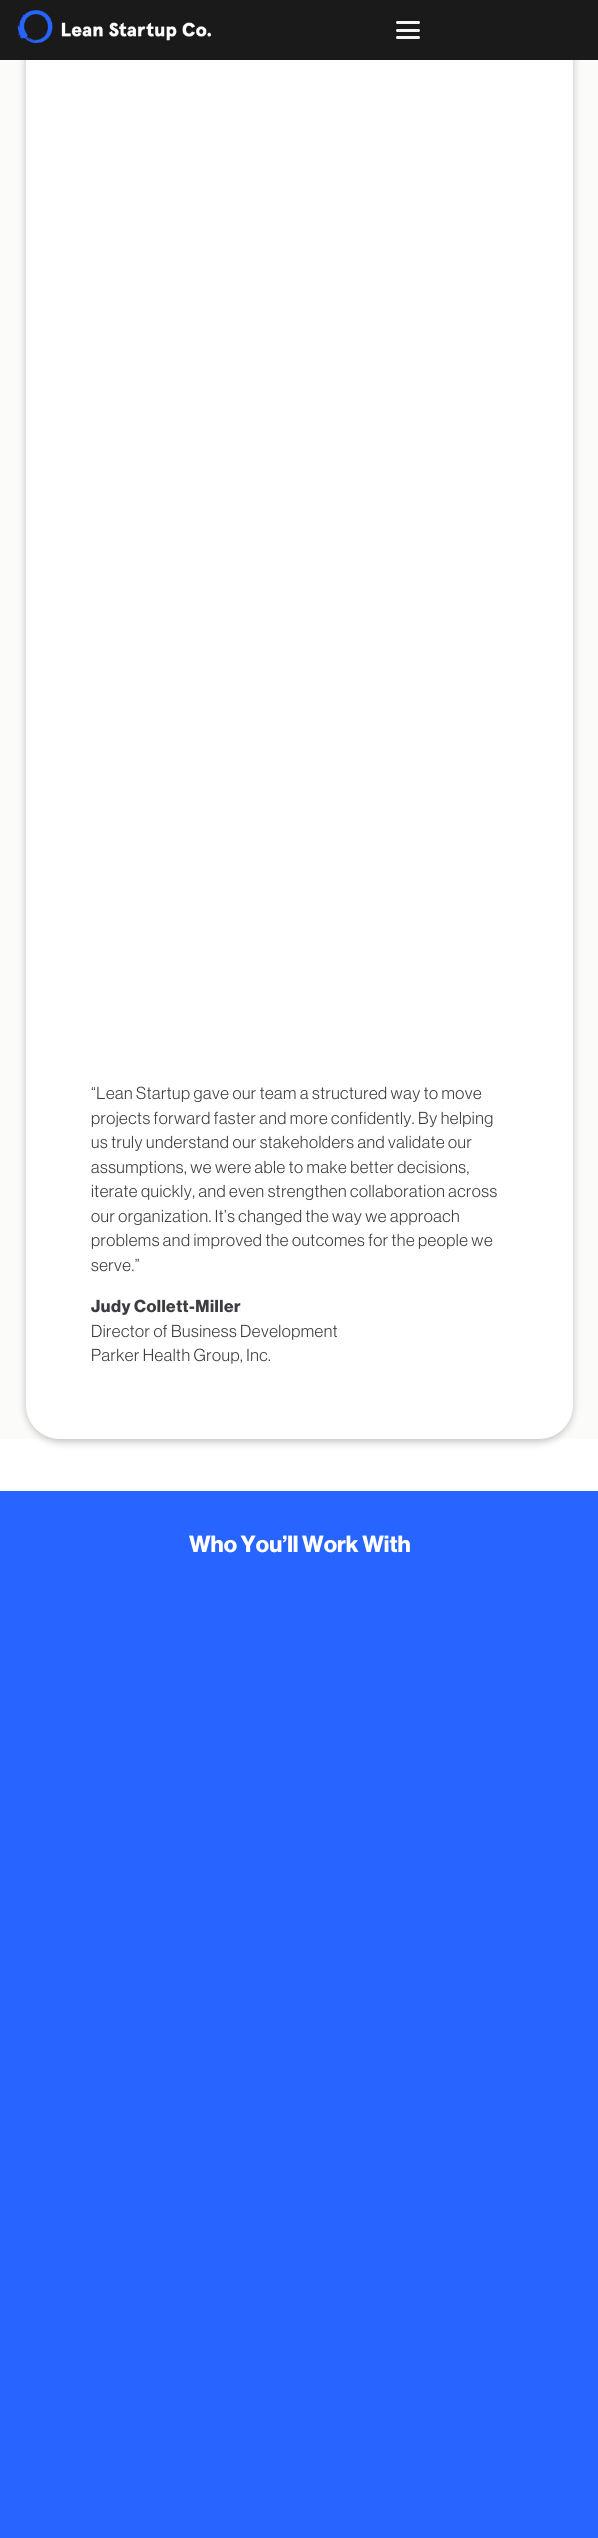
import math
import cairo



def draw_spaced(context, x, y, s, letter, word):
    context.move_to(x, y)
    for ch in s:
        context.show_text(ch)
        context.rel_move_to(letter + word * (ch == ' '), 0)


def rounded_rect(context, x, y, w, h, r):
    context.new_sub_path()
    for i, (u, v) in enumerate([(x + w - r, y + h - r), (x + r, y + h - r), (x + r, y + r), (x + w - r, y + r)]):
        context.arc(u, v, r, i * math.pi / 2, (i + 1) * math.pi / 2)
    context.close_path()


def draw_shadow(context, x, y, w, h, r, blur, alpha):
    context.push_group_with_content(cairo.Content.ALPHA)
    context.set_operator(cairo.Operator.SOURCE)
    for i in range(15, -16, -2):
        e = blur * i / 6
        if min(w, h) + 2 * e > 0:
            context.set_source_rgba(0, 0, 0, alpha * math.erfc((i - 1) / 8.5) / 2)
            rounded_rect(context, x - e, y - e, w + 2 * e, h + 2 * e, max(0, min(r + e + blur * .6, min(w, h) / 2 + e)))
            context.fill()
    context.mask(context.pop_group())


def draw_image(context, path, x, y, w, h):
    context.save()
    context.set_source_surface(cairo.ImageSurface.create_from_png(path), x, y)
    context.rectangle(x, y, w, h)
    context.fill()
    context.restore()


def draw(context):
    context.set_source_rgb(1, 1, 1)
    context.paint()
    context.set_source_rgb(251 / 255, 251 / 255, 249 / 255)
    context.rectangle(0, 60, 598, 1379)
    context.fill()
    context.set_source_rgb(0, 0, 0)
    draw_shadow(context, 26, -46, 547, 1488, 34, 4, 0.24)
    context.set_source_rgb(1, 1, 1)
    rounded_rect(context, 26, -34, 547, 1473, 34)
    context.fill()
    context.set_source_rgb(26 / 255, 26 / 255, 26 / 255)
    context.rectangle(0, 0, 598, 60)
    context.fill()
    draw_image(context, "images/1.png", 17, 10, 194, 33)
    context.set_source_rgb(245 / 255, 245 / 255, 245 / 255)
    rounded_rect(context, 396, 29, 24, 3, 1.5)
    context.fill()
    rounded_rect(context, 396, 21, 24, 3, 1.5)
    context.fill()
    rounded_rect(context, 396, 36, 24, 3, 1.5)
    context.fill()
    context.set_source_rgb(40 / 255, 100 / 255, 1)
    context.rectangle(0, 1491, 598, 1047)
    context.fill()
    context.select_font_face("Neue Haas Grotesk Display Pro")
    context.set_font_size(17)
    context.set_source_rgb(59 / 255, 61 / 255, 64 / 255)
    draw_spaced(context, 91, 1099, "“Lean Startup gave our team a structured way to move", 0.5, 0)
    draw_spaced(context, 91, 1124, "projects forward faster and more confidently. By helping", 0.5, 0)
    draw_spaced(context, 91, 1148, "us truly understand our stakeholders and validate our", 0.5, 0)
    draw_spaced(context, 91, 1173, "assumptions, we were able to make better decisions,", 0.5, 0)
    draw_spaced(context, 91, 1197, "iterate quickly, and even strengthen collaboration across", 0.5, 0)
    draw_spaced(context, 91, 1222, "our organization. It’s changed the way we approach", 0.5, 0)
    draw_spaced(context, 91, 1246, "problems and improved the outcomes for the people we", 0.5, 0)
    draw_spaced(context, 91, 1271, "serve.”", 0.5, 0)
    context.select_font_face("Neue Haas Grotesk Display Pro", cairo.FontSlant.NORMAL, cairo.FontWeight.BOLD)
    draw_spaced(context, 91, 1312, "Judy Collett-Miller", 0.5, 0)
    context.select_font_face("Neue Haas Grotesk Display Pro")
    draw_spaced(context, 91, 1337, "Director of Business Development", 0.5, 0)
    draw_spaced(context, 91, 1361, "Parker Health Group, Inc.", 0.5, 0)
    context.select_font_face("Neue Haas Grotesk Display Pro", cairo.FontSlant.NORMAL, cairo.FontWeight.BOLD)
    context.set_font_size(23)
    context.set_source_rgb(1, 1, 1)
    context.move_to(189, 1552)
    context.show_text("Who You’ll Work With")


surface = cairo.ImageSurface(cairo.Format.RGB24, 598, 2538)
context = cairo.Context(surface)
options = cairo.FontOptions()
options.set_hint_metrics(cairo.HintMetrics.OFF)
options.set_hint_style(cairo.HintStyle.NONE)
context.set_font_options(options)
context.set_miter_limit(4)
draw(context)
surface.write_to_png("out.png")
